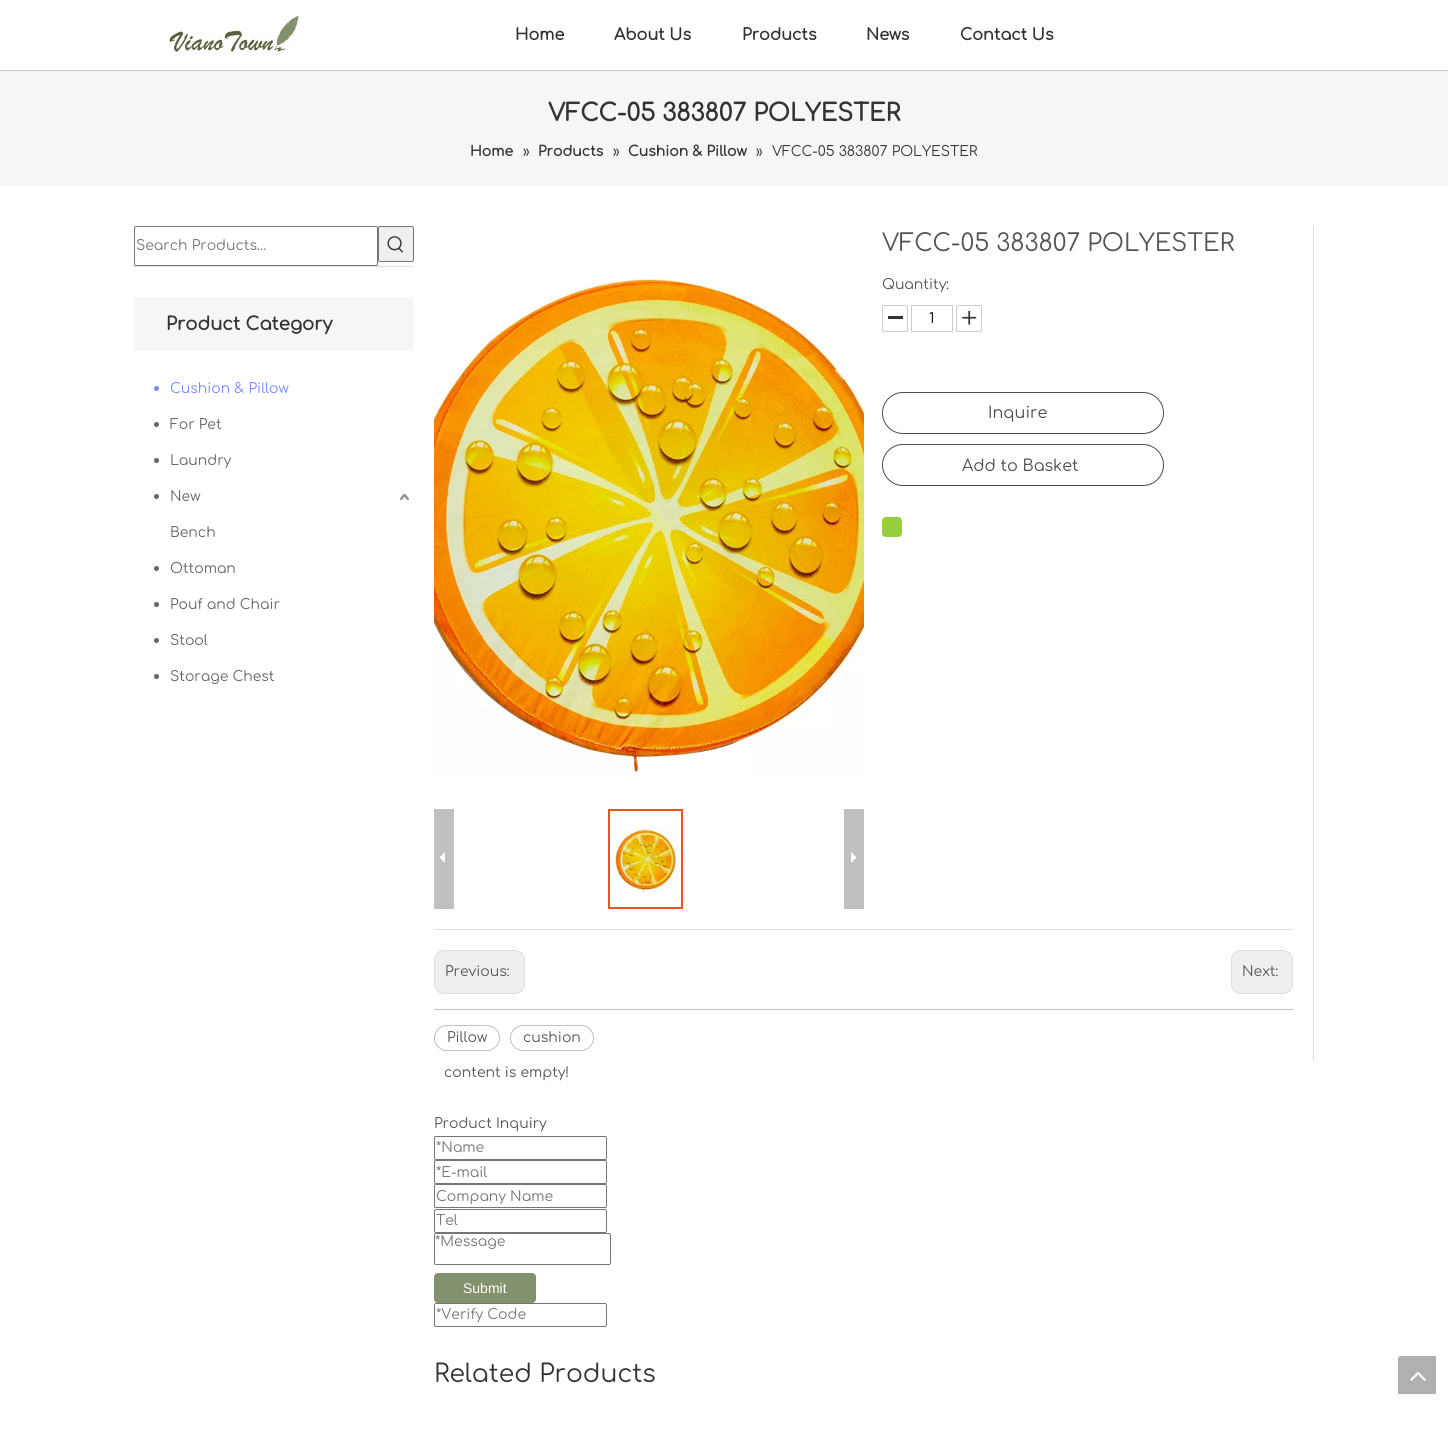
import math
import cairo



def rounded_rect(context, x, y, w, h, r):
    context.new_sub_path()
    for i, (u, v) in enumerate([(x + w - r, y + h - r), (x + r, y + h - r), (x + r, y + r), (x + w - r, y + r)]):
        context.arc(u, v, r, i * math.pi / 2, (i + 1) * math.pi / 2)
    context.close_path()


def draw_image(context, path, x, y, w, h):
    context.save()
    context.set_source_surface(cairo.ImageSurface.create_from_png(path), x, y)
    context.rectangle(x, y, w, h)
    context.fill()
    context.restore()


def draw(context):
    context.set_source_rgb(1, 1, 1)
    context.paint()
    context.set_source_rgb(201 / 255, 201 / 255, 201 / 255)
    context.rectangle(0, 70, 1448, 1)
    context.fill()
    draw_image(context, "images/1.png", 169, 16, 130, 36)
    context.set_source_rgb(246 / 255, 246 / 255, 246 / 255)
    context.rectangle(0, 71, 1448, 115)
    context.fill()
    context.set_source_rgb(221 / 255, 221 / 255, 221 / 255)
    context.rectangle(134, 266, 280, 1)
    context.fill()
    rounded_rect(context, 134.5, 226.5, 243, 39, 1.5)
    context.set_source_rgb(118 / 255, 118 / 255, 118 / 255)
    context.set_line_width(1)
    context.stroke()
    context.set_source_rgb(239 / 255, 239 / 255, 239 / 255)
    rounded_rect(context, 378.5, 226.5, 35, 35, 1.5)
    context.fill_preserve()
    context.set_source_rgb(118 / 255, 118 / 255, 118 / 255)
    context.stroke()
    draw_image(context, "images/2.png", 387, 236, 17, 17)
    context.set_source_rgb(246 / 255, 246 / 255, 246 / 255)
    context.rectangle(134, 297, 280, 54)
    context.fill()
    context.set_source_rgb(119 / 255, 140 / 255, 1)
    context.arc(156.5, 388.5, 2.5, 0, 2 * math.pi)
    context.fill()
    context.set_source_rgb(102 / 255, 102 / 255, 102 / 255)
    context.arc(156.5, 424.5, 2.5, 0, 2 * math.pi)
    context.fill()
    context.arc(156.5, 460.5, 2.5, 0, 2 * math.pi)
    context.fill()
    context.arc(156.5, 496.5, 2.5, 0, 2 * math.pi)
    context.fill()
    draw_image(context, "images/3.png", 400, 494, 9, 6)
    context.arc(156.5, 568.5, 2.5, 0, 2 * math.pi)
    context.fill()
    context.arc(156.5, 604.5, 2.5, 0, 2 * math.pi)
    context.fill()
    context.arc(156.5, 640.5, 2.5, 0, 2 * math.pi)
    context.fill()
    context.arc(156.5, 676.5, 2.5, 0, 2 * math.pi)
    context.fill()
    context.set_source_rgb(221 / 255, 221 / 255, 221 / 255)
    context.rectangle(1313, 226, 1, 835)
    context.fill()
    draw_image(context, "images/4.png", 434, 278, 430, 498)
    context.set_source_rgb(192 / 255, 192 / 255, 192 / 255)
    context.rectangle(434, 809, 20, 100)
    context.fill()
    context.set_source_rgb(1, 1, 1)
    context.new_path()
    context.move_to(445, 852)
    context.line_to(445, 863)
    context.line_to(440, 858)
    context.line_to(440, 857)
    context.close_path()
    context.fill()
    context.rectangle(609, 810, 73, 98)
    context.set_source_rgb(238 / 255, 83 / 255, 27 / 255)
    context.set_line_width(2)
    context.stroke()
    draw_image(context, "images/5.png", 615, 828, 64, 64)
    context.set_source_rgb(192 / 255, 192 / 255, 192 / 255)
    context.rectangle(844, 809, 20, 100)
    context.fill()
    context.set_source_rgb(1, 1, 1)
    context.new_path()
    context.move_to(851, 863)
    context.line_to(851, 852)
    context.line_to(856, 857)
    context.line_to(856, 858)
    context.close_path()
    context.fill()
    context.set_source_rgb(51 / 255, 51 / 255, 51 / 255)
    context.rectangle(888, 316, 15, 3)
    context.fill()
    rounded_rect(context, 882.5, 305.5, 25, 26, 0.5)
    context.set_source_rgb(204 / 255, 204 / 255, 204 / 255)
    context.set_line_width(1)
    context.stroke()
    context.rectangle(911.5, 305.5, 41, 26)
    context.stroke()
    draw_image(context, "images/6.png", 962, 310, 15, 15)
    rounded_rect(context, 956.5, 305.5, 25, 26, 0.5)
    context.stroke()
    rounded_rect(context, 882.5, 392.5, 281, 41, 20.5)
    context.set_source_rgb(76 / 255, 76 / 255, 76 / 255)
    context.stroke()
    rounded_rect(context, 882.5, 444.5, 281, 41, 20.5)
    context.stroke()
    context.set_source_rgb(149 / 255, 208 / 255, 58 / 255)
    rounded_rect(context, 882, 517, 20, 20, 4)
    context.fill()
    context.set_source_rgb(223 / 255, 223 / 255, 223 / 255)
    context.rectangle(434, 929, 859, 1)
    context.fill()
    context.set_source_rgb(239 / 255, 239 / 255, 239 / 255)
    rounded_rect(context, 434.5, 950.5, 90, 43, 9.5)
    context.fill_preserve()
    context.set_source_rgb(221 / 255, 221 / 255, 221 / 255)
    context.stroke()
    context.set_source_rgb(239 / 255, 239 / 255, 239 / 255)
    rounded_rect(context, 1231.5, 950.5, 61, 43, 9.5)
    context.fill_preserve()
    context.set_source_rgb(221 / 255, 221 / 255, 221 / 255)
    context.stroke()
    context.set_source_rgb(192 / 255, 192 / 255, 192 / 255)
    context.rectangle(434, 1009, 859, 1)
    context.fill()
    rounded_rect(context, 434.5, 1025.5, 65, 25, 12.5)
    context.stroke()
    rounded_rect(context, 510.5, 1025.5, 83, 25, 12.5)
    context.stroke()
    rounded_rect(context, 434.5, 1136.5, 172, 23, 1.5)
    context.set_source_rgb(118 / 255, 118 / 255, 118 / 255)
    context.stroke()
    rounded_rect(context, 434.5, 1160.5, 172, 23, 1.5)
    context.stroke()
    rounded_rect(context, 434.5, 1184.5, 172, 23, 1.5)
    context.stroke()
    rounded_rect(context, 434.5, 1209.5, 172, 23, 1.5)
    context.stroke()
    rounded_rect(context, 434.5, 1233.5, 176, 31, 1.5)
    context.stroke()
    context.set_source_rgb(131 / 255, 146 / 255, 108 / 255)
    rounded_rect(context, 434.5, 1273.5, 101, 29, 3.5)
    context.fill_preserve()
    context.stroke()
    rounded_rect(context, 434.5, 1303.5, 172, 23, 1.5)
    context.set_source_rgb(118 / 255, 118 / 255, 118 / 255)
    context.stroke()
    draw_image(context, "images/7.png", 1398, 1356, 38, 38)
    context.select_font_face("Comfortaa", cairo.FontSlant.NORMAL, cairo.FontWeight.BOLD)
    context.set_font_size(16)
    context.set_source_rgb(51 / 255, 51 / 255, 51 / 255)
    context.move_to(515, 40)
    context.show_text("Home")
    context.move_to(614, 40)
    context.show_text("About Us")
    context.move_to(742, 40)
    context.show_text("Products")
    context.move_to(866, 40)
    context.show_text("News")
    context.move_to(960, 40)
    context.show_text("Contact Us")
    context.set_font_size(24)
    context.move_to(548, 121)
    context.show_text("VFCC-05 383807 POLYESTER")
    context.set_font_size(14)
    context.move_to(470, 156)
    context.show_text("Home")
    context.select_font_face("Comfortaa")
    context.move_to(523, 156)
    context.show_text("»")
    context.select_font_face("Comfortaa", cairo.FontSlant.NORMAL, cairo.FontWeight.BOLD)
    context.move_to(538, 156)
    context.show_text("Products")
    context.select_font_face("Comfortaa")
    context.move_to(613, 156)
    context.show_text("»")
    context.select_font_face("Comfortaa", cairo.FontSlant.NORMAL, cairo.FontWeight.BOLD)
    context.move_to(628, 156)
    context.show_text("Cushion & Pillow")
    context.select_font_face("Comfortaa")
    context.move_to(756, 156)
    context.show_text("»")
    context.move_to(772, 156)
    context.show_text("VFCC-05 383807 POLYESTER")
    context.set_source_rgb(117 / 255, 117 / 255, 117 / 255)
    context.move_to(136, 250)
    context.show_text("Search Products…")
    context.select_font_face("Comfortaa", cairo.FontSlant.NORMAL, cairo.FontWeight.BOLD)
    context.set_font_size(18)
    context.set_source_rgb(51 / 255, 51 / 255, 51 / 255)
    context.move_to(166, 330)
    context.show_text("Product Category")
    context.select_font_face("Comfortaa")
    context.set_font_size(14)
    context.set_source_rgb(119 / 255, 140 / 255, 1)
    context.move_to(170, 393)
    context.show_text("Cushion & Pillow")
    context.set_source_rgb(102 / 255, 102 / 255, 102 / 255)
    context.move_to(170, 429)
    context.show_text("For Pet")
    context.move_to(170, 465)
    context.show_text("Laundry")
    context.move_to(170, 501)
    context.show_text("New")
    context.move_to(170, 537)
    context.show_text("Bench")
    context.move_to(170, 573)
    context.show_text("Ottoman")
    context.move_to(170, 609)
    context.show_text("Pouf and Chair")
    context.move_to(170, 645)
    context.show_text("Stool")
    context.move_to(170, 681)
    context.show_text("Storage Chest")
    context.set_font_size(24)
    context.set_source_rgb(84 / 255, 84 / 255, 84 / 255)
    context.move_to(882, 251)
    context.show_text("VFCC-05 383807 POLYESTER")
    context.set_font_size(14)
    context.move_to(882, 289)
    context.show_text("Quantity:")
    context.set_source_rgb(0, 0, 0)
    context.move_to(929, 323)
    context.show_text("1")
    context.set_font_size(16)
    context.set_source_rgb(76 / 255, 76 / 255, 76 / 255)
    context.move_to(988, 418)
    context.show_text("Inquire")
    context.move_to(962, 471)
    context.show_text("Add to Basket")
    context.set_font_size(14)
    context.set_source_rgb(84 / 255, 84 / 255, 84 / 255)
    context.move_to(445, 976)
    context.show_text("Previous:")
    context.move_to(1242, 976)
    context.show_text("Next:")
    context.move_to(447, 1042)
    context.show_text("Pillow")
    context.move_to(523, 1042)
    context.show_text("cushion")
    context.move_to(444, 1077)
    context.show_text("content is empty!")
    context.move_to(434, 1128)
    context.show_text("Product Inquiry")
    context.set_source_rgb(117 / 255, 117 / 255, 117 / 255)
    context.move_to(436, 1152)
    context.show_text("*Name")
    context.move_to(436, 1177)
    context.show_text("*E-mail")
    context.save()
    context.rectangle(436, 1189, 169, 15)
    context.clip()
    context.move_to(436, 1201)
    context.show_text("Company Name")
    context.restore()
    context.move_to(436, 1225)
    context.show_text("Tel")
    context.move_to(435, 1246)
    context.show_text("*Message")
    context.select_font_face("Liberation Sans")
    context.set_source_rgb(1, 1, 1)
    context.move_to(463, 1293)
    context.show_text("Submit")
    context.select_font_face("Comfortaa")
    context.set_source_rgb(117 / 255, 117 / 255, 117 / 255)
    context.move_to(436, 1319)
    context.show_text("*Verify Code")
    context.set_font_size(25)
    context.set_source_rgb(51 / 255, 51 / 255, 51 / 255)
    context.move_to(434, 1382)
    context.show_text("Related Products")


surface = cairo.ImageSurface(cairo.Format.RGB24, 1448, 1450)
context = cairo.Context(surface)
options = cairo.FontOptions()
options.set_hint_metrics(cairo.HintMetrics.OFF)
options.set_hint_style(cairo.HintStyle.NONE)
context.set_font_options(options)
context.set_miter_limit(4)
draw(context)
surface.write_to_png("out.png")
